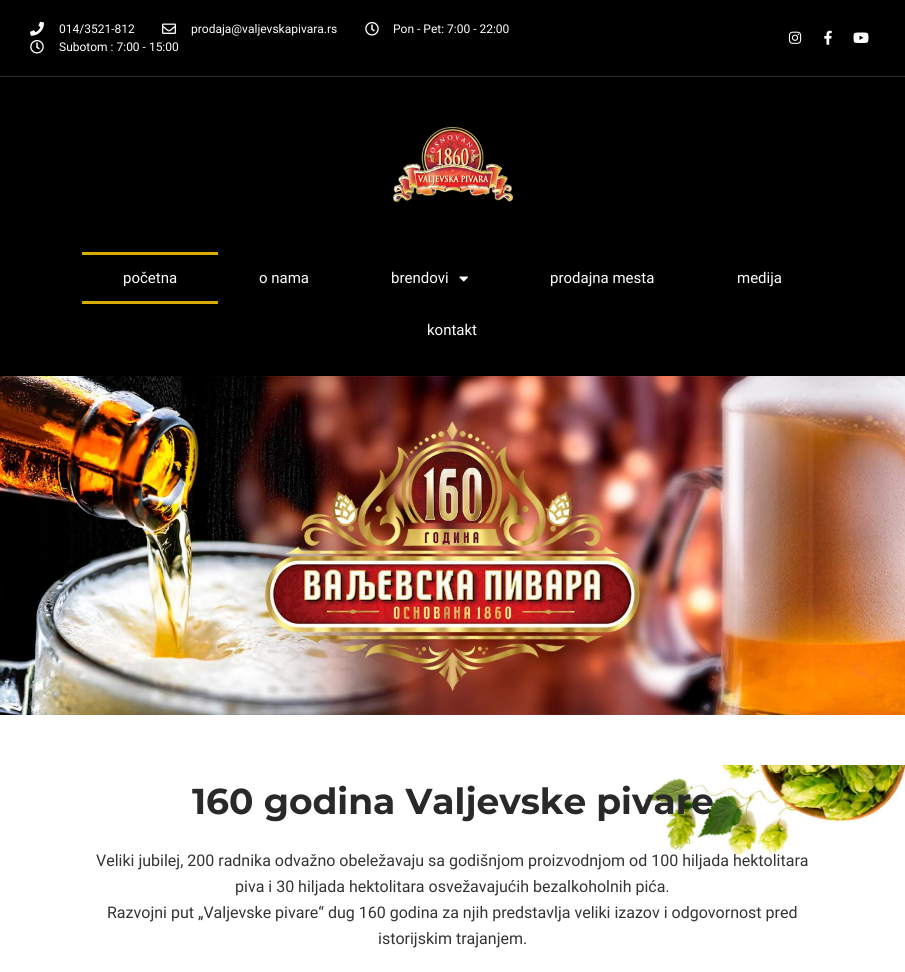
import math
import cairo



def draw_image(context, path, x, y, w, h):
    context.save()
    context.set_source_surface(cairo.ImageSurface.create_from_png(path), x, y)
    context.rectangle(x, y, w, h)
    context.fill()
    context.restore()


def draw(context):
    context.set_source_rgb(1, 1, 1)
    context.paint()
    context.set_source_rgb(0, 0, 0)
    context.rectangle(0, 0, 905, 76)
    context.fill()
    context.set_source_rgb(44 / 255, 44 / 255, 44 / 255)
    context.rectangle(0, 76, 905, 1)
    context.fill()
    draw_image(context, "images/1.png", 30, 21, 14, 15)
    draw_image(context, "images/2.png", 162, 23, 14, 11)
    draw_image(context, "images/3.png", 365, 22, 14, 14)
    draw_image(context, "images/3.png", 30, 40, 14, 14)
    draw_image(context, "images/4.png", 788, 31, 14, 13)
    draw_image(context, "images/5.png", 824, 30, 8, 15)
    draw_image(context, "images/6.png", 853, 32, 16, 11)
    context.set_source_rgb(0, 0, 0)
    context.rectangle(0, 77, 905, 299)
    context.fill()
    draw_image(context, "images/7.png", 393, 127, 120, 75)
    context.set_source_rgb(217 / 255, 172 / 255, 0)
    context.rectangle(82, 252, 136, 3)
    context.fill()
    context.rectangle(82, 301, 136, 3)
    context.fill()
    draw_image(context, "images/8.png", 459, 276, 9, 6)
    draw_image(context, "images/9.png", 0, 376, 905, 339)
    draw_image(context, "images/10.png", 641, 765, 264, 95)
    context.select_font_face("Roboto")
    context.set_font_size(12)
    context.set_source_rgb(1, 1, 1)
    context.move_to(59, 33)
    context.show_text("014/3521-812")
    context.move_to(191, 33)
    context.show_text("prodaja@valjevskapivara.rs")
    context.move_to(393, 33)
    context.show_text("Pon - Pet: 7:00 - 22:00")
    context.move_to(59, 51)
    context.show_text("Subotom : 7:00 - 15:00")
    context.set_font_size(15)
    context.move_to(123, 283)
    context.show_text("početna")
    context.move_to(259, 283)
    context.show_text("o nama")
    context.move_to(391, 283)
    context.show_text("brendovi")
    context.move_to(550, 283)
    context.show_text("prodajna mesta")
    context.move_to(737, 283)
    context.show_text("medija")
    context.move_to(427, 335)
    context.show_text("kontakt")
    context.select_font_face("Montserrat", cairo.FontSlant.NORMAL, cairo.FontWeight.BOLD)
    context.set_font_size(36)
    context.set_source_rgb(41 / 255, 41 / 255, 41 / 255)
    context.move_to(192, 814)
    context.show_text("160 godina Valjevske pivare")
    context.select_font_face("Roboto")
    context.set_font_size(16)
    context.set_source_rgb(51 / 255, 51 / 255, 51 / 255)
    context.move_to(96, 866)
    context.show_text("Veliki jubilej, 200 radnika odvažno obeležavaju sa godišnjom proizvodnjom od 100 hiljada hektolitara")
    context.move_to(235, 892)
    context.show_text("piva i 30 hiljada hektolitara osvežavajućih bezalkoholnih pića.")
    context.move_to(107, 918)
    context.show_text("Razvojni put „Valjevske pivare“ dug 160 godina za njih predstavlja veliki izazov i odgovornost pred")
    context.move_to(378, 944)
    context.show_text("istorijskim trajanjem.")


surface = cairo.ImageSurface(cairo.Format.RGB24, 905, 972)
context = cairo.Context(surface)
options = cairo.FontOptions()
options.set_hint_metrics(cairo.HintMetrics.OFF)
options.set_hint_style(cairo.HintStyle.NONE)
context.set_font_options(options)
context.set_miter_limit(4)
draw(context)
surface.write_to_png("out.png")
